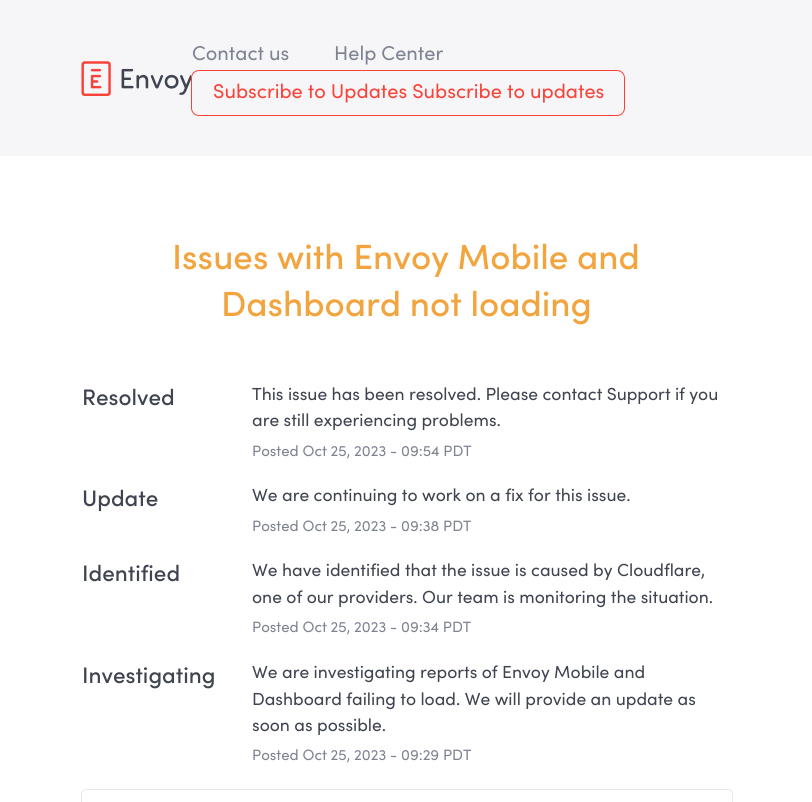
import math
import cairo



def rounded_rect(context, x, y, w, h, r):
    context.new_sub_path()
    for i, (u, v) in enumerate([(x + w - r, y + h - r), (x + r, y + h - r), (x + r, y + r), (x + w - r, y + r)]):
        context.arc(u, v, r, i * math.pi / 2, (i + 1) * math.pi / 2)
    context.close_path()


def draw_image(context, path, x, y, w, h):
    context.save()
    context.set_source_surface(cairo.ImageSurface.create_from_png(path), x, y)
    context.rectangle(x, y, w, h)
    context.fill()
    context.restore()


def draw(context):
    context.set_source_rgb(1, 1, 1)
    context.paint()
    context.set_source_rgb(246 / 255, 246 / 255, 249 / 255)
    context.rectangle(0, 0, 812, 156)
    context.fill()
    draw_image(context, "images/1.png", 81, 61, 110, 35)
    rounded_rect(context, 191.5, 70.5, 433, 45, 7.5)
    context.set_source_rgb(250 / 255, 67 / 255, 56 / 255)
    context.set_line_width(1)
    context.stroke()
    rounded_rect(context, 81.5, 789.5, 651, 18, 4.5)
    context.set_source_rgb(232 / 255, 232 / 255, 232 / 255)
    context.stroke()
    context.select_font_face("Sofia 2")
    context.set_font_size(20)
    context.set_source_rgb(126 / 255, 131 / 255, 145 / 255)
    context.move_to(192, 60)
    context.show_text("Contact us")
    context.move_to(334, 60)
    context.show_text("Help Center")
    context.set_source_rgb(250 / 255, 67 / 255, 56 / 255)
    context.move_to(213, 98)
    context.show_text("Subscribe to Updates Subscribe to updates")
    context.select_font_face("Sofia")
    context.set_font_size(35)
    context.set_source_rgb(242 / 255, 165 / 255, 63 / 255)
    context.move_to(172, 269)
    context.show_text("Issues with Envoy Mobile and")
    context.move_to(221, 316)
    context.show_text("Dashboard not loading")
    context.set_font_size(22.5)
    context.set_source_rgb(63 / 255, 68 / 255, 80 / 255)
    context.move_to(82, 405)
    context.show_text("Resolved")
    context.select_font_face("Sofia 2")
    context.set_font_size(17.5)
    context.move_to(252, 400)
    context.show_text("This issue has been resolved. Please contact Support if you")
    context.move_to(252, 426)
    context.show_text("are still experiencing problems.")
    context.set_font_size(15)
    context.set_source_rgb(126 / 255, 131 / 255, 145 / 255)
    context.move_to(252, 456)
    context.show_text("Posted Oct 25, 2023 - 09:54 PDT")
    context.select_font_face("Sofia")
    context.set_font_size(22.5)
    context.set_source_rgb(63 / 255, 68 / 255, 80 / 255)
    context.move_to(82, 506)
    context.show_text("Update")
    context.select_font_face("Sofia 2")
    context.set_font_size(17.5)
    context.move_to(252, 501)
    context.show_text("We are continuing to work on a fix for this issue.")
    context.set_font_size(15)
    context.set_source_rgb(126 / 255, 131 / 255, 145 / 255)
    context.move_to(252, 531)
    context.show_text("Posted Oct 25, 2023 - 09:38 PDT")
    context.select_font_face("Sofia")
    context.set_font_size(22.5)
    context.set_source_rgb(63 / 255, 68 / 255, 80 / 255)
    context.move_to(82, 581)
    context.show_text("Identified")
    context.select_font_face("Sofia 2")
    context.set_font_size(17.5)
    context.move_to(252, 576)
    context.show_text("We have identified that the issue is caused by Cloudflare,")
    context.move_to(252, 603)
    context.show_text("one of our providers. Our team is monitoring the situation.")
    context.set_font_size(15)
    context.set_source_rgb(126 / 255, 131 / 255, 145 / 255)
    context.move_to(252, 632)
    context.show_text("Posted Oct 25, 2023 - 09:34 PDT")
    context.select_font_face("Sofia")
    context.set_font_size(22.5)
    context.set_source_rgb(63 / 255, 68 / 255, 80 / 255)
    context.move_to(82, 683)
    context.show_text("Investigating")
    context.select_font_face("Sofia 2")
    context.set_font_size(17.5)
    context.move_to(252, 678)
    context.show_text("We are investigating reports of Envoy Mobile and")
    context.move_to(252, 705)
    context.show_text("Dashboard failing to load. We will provide an update as")
    context.move_to(252, 731)
    context.show_text("soon as possible.")
    context.set_font_size(15)
    context.set_source_rgb(126 / 255, 131 / 255, 145 / 255)
    context.move_to(252, 760)
    context.show_text("Posted Oct 25, 2023 - 09:29 PDT")


surface = cairo.ImageSurface(cairo.Format.RGB24, 812, 802)
context = cairo.Context(surface)
options = cairo.FontOptions()
options.set_hint_metrics(cairo.HintMetrics.OFF)
options.set_hint_style(cairo.HintStyle.NONE)
context.set_font_options(options)
context.set_miter_limit(4)
draw(context)
surface.write_to_png("out.png")
